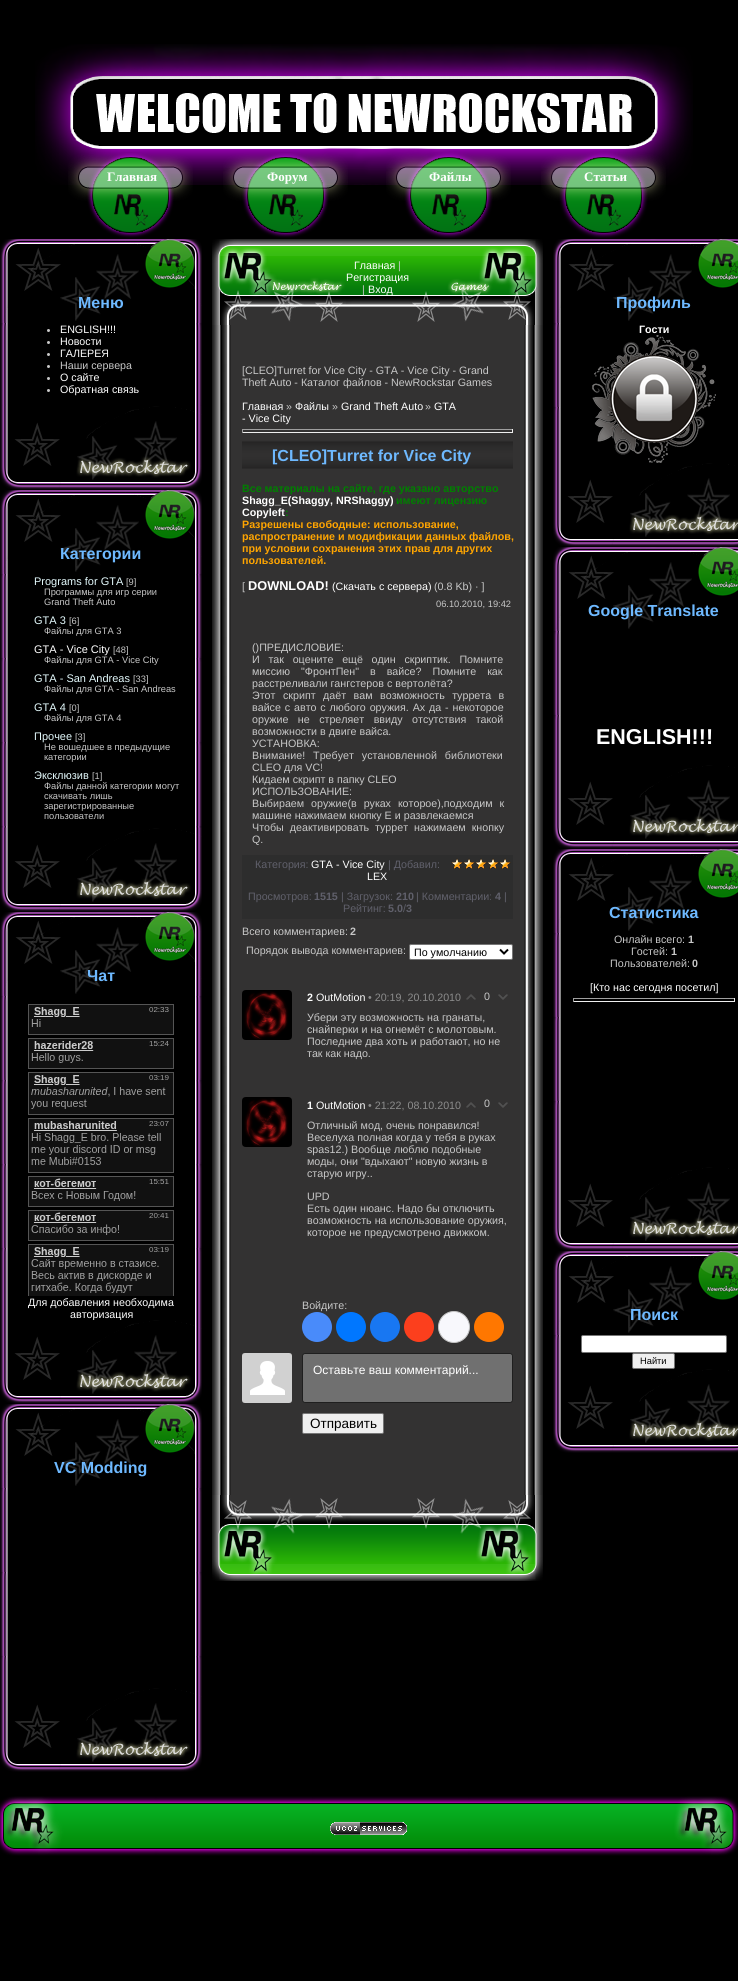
import math
import cairo



def draw_spaced(context, x, y, s, letter, word):
    context.move_to(x, y)
    for ch in s:
        context.show_text(ch)
        context.rel_move_to(letter + word * (ch == ' '), 0)


def rounded_rect(context, x, y, w, h, r):
    context.new_sub_path()
    for i, (u, v) in enumerate([(x + w - r, y + h - r), (x + r, y + h - r), (x + r, y + r), (x + w - r, y + r)]):
        context.arc(u, v, r, i * math.pi / 2, (i + 1) * math.pi / 2)
    context.close_path()


def draw_image(context, path, x, y, w, h):
    context.save()
    context.set_source_surface(cairo.ImageSurface.create_from_png(path), x, y)
    context.rectangle(x, y, w, h)
    context.fill()
    context.restore()


def draw(context):
    context.set_source_rgb(0, 0, 0)
    context.paint()
    draw_image(context, "images/1.png", 35, 44, 658, 141)
    draw_image(context, "images/2.png", 68, 153, 125, 85)
    draw_image(context, "images/3.png", 223, 153, 125, 85)
    draw_image(context, "images/4.png", 386, 152, 125, 86)
    draw_image(context, "images/5.png", 541, 152, 125, 86)
    draw_image(context, "images/6.png", 0, 239, 202, 84)
    draw_image(context, "images/7.png", 0, 323, 202, 83)
    context.set_source_rgb(200 / 255, 200 / 255, 200 / 255)
    context.arc(48.5, 330.5, 1.5, 0, 2 * math.pi)
    context.fill()
    context.arc(48.5, 342.5, 1.5, 0, 2 * math.pi)
    context.fill()
    context.arc(48.5, 354.5, 1.5, 0, 2 * math.pi)
    context.fill()
    context.arc(48.5, 366.5, 1.5, 0, 2 * math.pi)
    context.fill()
    context.arc(48.5, 378.5, 1.5, 0, 2 * math.pi)
    context.fill()
    context.arc(48.5, 390.5, 1.5, 0, 2 * math.pi)
    context.fill()
    draw_image(context, "images/8.png", 0, 406, 202, 84)
    draw_image(context, "images/6.png", 0, 490, 202, 84)
    draw_image(context, "images/9.png", 0, 574, 202, 254)
    draw_image(context, "images/8.png", 0, 828, 202, 84)
    draw_image(context, "images/6.png", 0, 912, 202, 84)
    draw_image(context, "images/10.png", 0, 996, 202, 324)
    draw_image(context, "images/11.png", 28, 1004, 146, 292)
    draw_image(context, "images/6.png", 0, 1404, 202, 84)
    draw_image(context, "images/12.png", 0, 1488, 202, 200)
    draw_image(context, "images/8.png", 0, 1688, 202, 84)
    draw_image(context, "images/13.png", 212, 239, 134, 86)
    draw_image(context, "images/14.png", 346, 239, 63, 86)
    draw_image(context, "images/15.png", 409, 239, 134, 86)
    draw_image(context, "images/16.png", 212, 325, 30, 39)
    context.set_source_rgb(51 / 255, 50 / 255, 50 / 255)
    context.rectangle(242, 325, 271, 1170)
    context.fill()
    draw_image(context, "images/17.png", 513, 325, 30, 39)
    draw_image(context, "images/18.png", 212, 364, 30, 1092)
    context.set_source_rgb(159 / 255, 159 / 255, 159 / 255)
    context.rectangle(242, 429, 271, 1)
    context.fill()
    context.set_source_rgb(238 / 255, 238 / 255, 238 / 255)
    context.rectangle(512, 429, 1, 4)
    context.fill()
    context.rectangle(242, 432, 271, 1)
    context.fill()
    context.set_source_rgb(159 / 255, 159 / 255, 159 / 255)
    context.rectangle(242, 429, 1, 4)
    context.fill()
    draw_image(context, "images/19.png", 242, 441, 271, 28)
    context.set_source_rgb(45 / 255, 45 / 255, 45 / 255)
    context.rectangle(242, 855, 271, 64)
    context.fill()
    draw_image(context, "images/20.png", 452, 859, 58, 10)
    draw_image(context, "images/21.png", 451, 858, 60, 11)
    context.set_source_rgb(1, 1, 1)
    rounded_rect(context, 409.5, 944.5, 103, 15, 1.5)
    context.fill_preserve()
    context.set_source_rgb(118 / 255, 118 / 255, 118 / 255)
    context.set_line_width(1)
    context.stroke()
    context.new_path()
    context.move_to(500, 949.5)
    context.line_to(504, 953.5)
    context.line_to(508, 949.5)
    context.set_source_rgb(0, 0, 0)
    context.set_line_width(2)
    context.stroke()
    draw_image(context, "images/22.png", 242, 990, 50, 50)
    draw_image(context, "images/23.png", 466, 994, 10, 6)
    draw_image(context, "images/24.png", 498, 994, 10, 6)
    draw_image(context, "images/25.png", 242, 1097, 50, 50)
    draw_image(context, "images/23.png", 466, 1102, 10, 6)
    draw_image(context, "images/24.png", 498, 1102, 10, 6)
    context.set_source_rgb(73 / 255, 139 / 255, 250 / 255)
    context.arc(317, 1327, 15, 0, 2 * math.pi)
    context.fill()
    context.set_source_rgb(0, 119 / 255, 1)
    context.arc(351, 1327, 15, 0, 2 * math.pi)
    context.fill()
    context.set_source_rgb(24 / 255, 119 / 255, 242 / 255)
    context.arc(385, 1327, 15, 0, 2 * math.pi)
    context.fill()
    context.set_source_rgb(252 / 255, 63 / 255, 29 / 255)
    context.arc(419, 1327, 15, 0, 2 * math.pi)
    context.fill()
    context.set_source_rgb(248 / 255, 248 / 255, 252 / 255)
    context.arc(454, 1327, 15.5, 0, 2 * math.pi)
    context.fill_preserve()
    context.set_source_rgb(196 / 255, 196 / 255, 196 / 255)
    context.set_line_width(1)
    context.stroke()
    context.set_source_rgb(1, 119 / 255, 0)
    context.arc(489, 1327, 15, 0, 2 * math.pi)
    context.fill()
    draw_image(context, "images/26.png", 242, 1353, 50, 50)
    context.set_source_rgb(112 / 255, 112 / 255, 112 / 255)
    rounded_rect(context, 302.5, 1353.5, 210, 49, 2.5)
    context.fill_preserve()
    context.set_source_rgb(31 / 255, 31 / 255, 31 / 255)
    context.stroke()
    context.set_source_rgb(239 / 255, 239 / 255, 239 / 255)
    rounded_rect(context, 302.5, 1413.5, 81, 20, 1.5)
    context.fill_preserve()
    context.set_source_rgb(118 / 255, 118 / 255, 118 / 255)
    context.stroke()
    draw_image(context, "images/27.png", 513, 364, 30, 1092)
    draw_image(context, "images/16.png", 212, 1456, 30, 39)
    draw_image(context, "images/17.png", 513, 1456, 30, 39)
    draw_image(context, "images/28.png", 212, 1495, 134, 86)
    draw_image(context, "images/29.png", 346, 1495, 63, 86)
    draw_image(context, "images/30.png", 409, 1495, 134, 86)
    draw_image(context, "images/31.png", 553, 239, 185, 84)
    draw_image(context, "images/32.png", 553, 323, 8, 140)
    draw_image(context, "images/33.png", 592, 335, 124, 128)
    draw_image(context, "images/34.png", 553, 463, 185, 84)
    draw_image(context, "images/31.png", 553, 547, 185, 84)
    draw_image(context, "images/35.png", 553, 631, 8, 134)
    draw_image(context, "images/34.png", 553, 765, 185, 84)
    draw_image(context, "images/31.png", 553, 849, 185, 84)
    draw_image(context, "images/36.png", 553, 933, 8, 234)
    context.set_source_rgb(159 / 255, 159 / 255, 159 / 255)
    context.rectangle(573, 998, 162, 1)
    context.fill()
    context.set_source_rgb(238 / 255, 238 / 255, 238 / 255)
    context.rectangle(734, 998, 1, 4)
    context.fill()
    context.rectangle(573, 1001, 162, 1)
    context.fill()
    context.set_source_rgb(159 / 255, 159 / 255, 159 / 255)
    context.rectangle(573, 998, 1, 4)
    context.fill()
    draw_image(context, "images/34.png", 553, 1167, 185, 84)
    draw_image(context, "images/31.png", 553, 1251, 185, 84)
    draw_image(context, "images/37.png", 553, 1335, 8, 34)
    context.set_source_rgb(1, 1, 1)
    rounded_rect(context, 581.5, 1335.5, 145, 17, 1.5)
    context.fill_preserve()
    context.set_source_rgb(118 / 255, 118 / 255, 118 / 255)
    context.stroke()
    context.set_source_rgb(239 / 255, 239 / 255, 239 / 255)
    rounded_rect(context, 632.5, 1353.5, 42, 15, 1.5)
    context.fill_preserve()
    context.set_source_rgb(118 / 255, 118 / 255, 118 / 255)
    context.stroke()
    draw_image(context, "images/34.png", 553, 1369, 185, 84)
    draw_image(context, "images/38.png", 0, 1796, 156, 60)
    draw_image(context, "images/39.png", 156, 1796, 426, 60)
    draw_image(context, "images/40.png", 330, 1822, 77, 13)
    draw_image(context, "images/41.png", 582, 1796, 156, 60)
    context.select_font_face("Liberation Serif", cairo.FontSlant.NORMAL, cairo.FontWeight.BOLD)
    context.set_font_size(13)
    context.set_source_rgb(1, 1, 1)
    context.move_to(107, 181)
    context.show_text("Главная")
    context.move_to(267, 181)
    context.show_text("Форум")
    context.move_to(429, 181)
    context.show_text("Файлы")
    context.move_to(584, 181)
    context.show_text("Статьи")
    context.select_font_face("Liberation Sans", cairo.FontSlant.NORMAL, cairo.FontWeight.BOLD)
    context.set_font_size(16)
    context.set_source_rgb(110 / 255, 185 / 255, 1)
    context.move_to(78, 308)
    context.show_text("Меню")
    context.select_font_face("Liberation Sans")
    context.set_font_size(10.7)
    context.set_source_rgb(1, 1, 1)
    context.move_to(60, 333)
    context.show_text("ENGLISH!!!")
    context.move_to(60, 345)
    context.show_text("Новости")
    context.move_to(60, 357)
    context.show_text("ГАЛЕРЕЯ")
    context.set_source_rgb(200 / 255, 200 / 255, 200 / 255)
    context.move_to(60, 369)
    context.show_text("Наши сервера")
    context.set_source_rgb(1, 1, 1)
    context.move_to(60, 381)
    context.show_text("О сайте")
    context.move_to(60, 393)
    context.show_text("Обратная связь")
    context.select_font_face("Liberation Sans", cairo.FontSlant.NORMAL, cairo.FontWeight.BOLD)
    context.set_font_size(16)
    context.set_source_rgb(110 / 255, 185 / 255, 1)
    context.move_to(60, 559)
    context.show_text("Категории")
    context.select_font_face("Liberation Sans")
    context.set_font_size(11)
    context.set_source_rgb(228 / 255, 250 / 255, 253 / 255)
    context.move_to(34, 585)
    context.show_text("Programs for GTA")
    context.set_font_size(9.3)
    context.set_source_rgb(200 / 255, 200 / 255, 200 / 255)
    context.move_to(126, 585)
    context.show_text("[9]")
    context.move_to(44, 595)
    context.show_text("Программы для игр серии")
    context.move_to(44, 605)
    context.show_text("Grand Theft Auto")
    context.set_font_size(11)
    context.set_source_rgb(228 / 255, 250 / 255, 253 / 255)
    context.move_to(34, 624)
    context.show_text("GTA 3")
    context.set_font_size(9.3)
    context.set_source_rgb(200 / 255, 200 / 255, 200 / 255)
    context.move_to(69, 624)
    context.show_text("[6]")
    context.move_to(44, 634)
    context.show_text("Файлы для GTA 3")
    context.set_font_size(11)
    context.set_source_rgb(1, 1, 1)
    context.move_to(34, 653)
    context.show_text("GTA - Vice City")
    context.set_font_size(9.3)
    context.set_source_rgb(200 / 255, 200 / 255, 200 / 255)
    context.move_to(113, 653)
    context.show_text("[48]")
    context.move_to(44, 663)
    context.show_text("Файлы для GTA - Vice City")
    context.set_font_size(11)
    context.set_source_rgb(228 / 255, 250 / 255, 253 / 255)
    context.move_to(34, 682)
    context.show_text("GTA - San Andreas")
    context.set_font_size(9.3)
    context.set_source_rgb(200 / 255, 200 / 255, 200 / 255)
    context.move_to(133, 682)
    context.show_text("[33]")
    context.move_to(44, 692)
    context.show_text("Файлы для GTA - San Andreas")
    context.set_font_size(11)
    context.set_source_rgb(228 / 255, 250 / 255, 253 / 255)
    context.move_to(34, 711)
    context.show_text("GTA 4")
    context.set_font_size(9.3)
    context.set_source_rgb(200 / 255, 200 / 255, 200 / 255)
    context.move_to(69, 711)
    context.show_text("[0]")
    context.move_to(44, 721)
    context.show_text("Файлы для GTA 4")
    context.set_font_size(11)
    context.set_source_rgb(228 / 255, 250 / 255, 253 / 255)
    context.move_to(34, 740)
    context.show_text("Прочее")
    context.set_font_size(9.3)
    context.set_source_rgb(200 / 255, 200 / 255, 200 / 255)
    context.move_to(75, 740)
    context.show_text("[3]")
    context.move_to(44, 750)
    context.show_text("Не вошедшее в предыдущие")
    context.move_to(44, 760)
    context.show_text("категории")
    context.set_font_size(11)
    context.set_source_rgb(228 / 255, 250 / 255, 253 / 255)
    context.move_to(34, 779)
    context.show_text("Эксклюзив")
    context.set_font_size(9.3)
    context.set_source_rgb(200 / 255, 200 / 255, 200 / 255)
    context.move_to(92, 779)
    context.show_text("[1]")
    context.move_to(44, 789)
    context.show_text("Файлы данной категории могут")
    context.move_to(44, 799)
    context.show_text("скачивать лишь")
    context.move_to(44, 809)
    context.show_text("зарегистрированные")
    context.move_to(44, 819)
    context.show_text("пользователи")
    context.select_font_face("Liberation Sans", cairo.FontSlant.NORMAL, cairo.FontWeight.BOLD)
    context.set_font_size(16)
    context.set_source_rgb(110 / 255, 185 / 255, 1)
    context.move_to(87, 981)
    context.show_text("Чат")
    context.select_font_face("Liberation Sans")
    context.set_font_size(10.7)
    context.set_source_rgb(1, 1, 1)
    context.move_to(28, 1306)
    context.show_text("Для добавления необходима")
    context.move_to(70, 1318)
    context.show_text("авторизация")
    draw_image(context, "images/8.png", 0, 1320, 202, 84)
    context.select_font_face("Liberation Sans", cairo.FontSlant.NORMAL, cairo.FontWeight.BOLD)
    context.set_font_size(16)
    context.set_source_rgb(110 / 255, 185 / 255, 1)
    context.move_to(54, 1473)
    context.show_text("VC Modding")
    context.select_font_face("Liberation Sans")
    context.set_font_size(10.7)
    context.set_source_rgb(1, 1, 1)
    context.move_to(354, 269)
    context.show_text("Главная")
    context.set_source_rgb(200 / 255, 200 / 255, 200 / 255)
    context.move_to(398, 269)
    context.show_text("|")
    context.set_source_rgb(1, 1, 1)
    context.move_to(346, 281)
    context.show_text("Регистрация")
    context.set_source_rgb(200 / 255, 200 / 255, 200 / 255)
    context.move_to(362, 293)
    context.show_text("|")
    context.set_source_rgb(1, 1, 1)
    context.move_to(368, 293)
    context.show_text("Вход")
    context.set_source_rgb(200 / 255, 200 / 255, 200 / 255)
    context.move_to(242, 374)
    context.show_text("[CLEO]Turret for Vice City - GTA - Vice City - Grand")
    context.move_to(242, 386)
    context.show_text("Theft Auto - Каталог файлов - NewRockstar Games")
    context.set_source_rgb(1, 1, 1)
    context.move_to(242, 410)
    context.show_text("Главная")
    context.set_source_rgb(200 / 255, 200 / 255, 200 / 255)
    context.move_to(286, 410)
    context.show_text("»")
    context.set_source_rgb(1, 1, 1)
    context.move_to(295, 410)
    context.show_text("Файлы")
    context.set_source_rgb(200 / 255, 200 / 255, 200 / 255)
    context.move_to(332, 410)
    context.show_text("»")
    context.set_source_rgb(1, 1, 1)
    context.move_to(341, 410)
    context.show_text("Grand Theft Auto")
    context.set_source_rgb(200 / 255, 200 / 255, 200 / 255)
    context.move_to(425, 410)
    context.show_text("»")
    context.set_source_rgb(1, 1, 1)
    context.move_to(434, 410)
    context.show_text("GTA")
    context.move_to(242, 422)
    context.show_text("- Vice City")
    context.select_font_face("Liberation Sans", cairo.FontSlant.NORMAL, cairo.FontWeight.BOLD)
    context.set_font_size(16)
    context.set_source_rgb(110 / 255, 185 / 255, 1)
    context.move_to(272, 461)
    context.show_text("[CLEO]Turret for Vice City")
    context.set_font_size(10.7)
    context.set_source_rgb(0, 128 / 255, 0)
    context.move_to(242, 492)
    context.show_text("Все материалы на сайте, где указано авторство")
    context.set_source_rgb(1, 1, 1)
    context.move_to(242, 504)
    context.show_text("Shagg_E(Shaggy, NRShaggy)")
    context.set_source_rgb(0, 128 / 255, 0)
    context.move_to(396, 504)
    context.show_text("имеют лицензию")
    context.set_source_rgb(1, 1, 1)
    context.move_to(242, 516)
    context.show_text("Copyleft")
    context.set_source_rgb(0, 128 / 255, 0)
    context.move_to(285, 516)
    context.show_text(":")
    context.set_source_rgb(1, 165 / 255, 0)
    context.move_to(242, 528)
    context.show_text("Разрешены свободные: использование,")
    context.move_to(242, 540)
    context.show_text("распространение и модификации данных файлов,")
    context.move_to(242, 552)
    context.show_text("при условии сохранения этих прав для других")
    context.move_to(242, 564)
    context.show_text("пользователей.")
    context.select_font_face("Liberation Sans")
    context.set_source_rgb(200 / 255, 200 / 255, 200 / 255)
    context.move_to(242, 590)
    context.show_text("[")
    context.select_font_face("Liberation Sans", cairo.FontSlant.NORMAL, cairo.FontWeight.BOLD)
    context.set_font_size(12.75)
    context.set_source_rgb(1, 1, 1)
    context.move_to(248, 590)
    context.show_text("DOWNLOAD!")
    context.select_font_face("Liberation Sans")
    context.set_font_size(10.7)
    context.move_to(332, 590)
    context.show_text("(Скачать с сервера)")
    context.set_source_rgb(200 / 255, 200 / 255, 200 / 255)
    context.move_to(434, 590)
    context.show_text("(0.8 Kb) · ]")
    context.set_font_size(9.3)
    context.move_to(436, 607)
    context.show_text("06.10.2010, 19:42")
    context.set_font_size(10.7)
    context.move_to(252, 651)
    context.show_text("()ПРЕДИСЛОВИЕ:")
    draw_spaced(context, 252, 663, "И так оцените ещё один скриптик. Помните", 0, 5.75)
    draw_spaced(context, 252, 675, "миссию \"ФронтПен\" в вайсе? Помните как", 0, 8)
    context.move_to(252, 687)
    context.show_text("расстреливали гангстеров с вертолёта?")
    draw_spaced(context, 252, 699, "Этот скрипт даёт вам возможность туррета в", 0, 4.5)
    draw_spaced(context, 252, 711, "вайсе с авто с любого оружия. Ах да - некоторое", 0, 0.9)
    draw_spaced(context, 252, 723, "оружие не стреляет ввиду отсутствия такой", 0, 6.5)
    context.move_to(252, 735)
    context.show_text("возможности в двиге вайса.")
    context.move_to(252, 747)
    context.show_text("УСТАНОВКА:")
    draw_spaced(context, 252, 759, "Внимание! Требует установленной библиотеки", 0, 5)
    context.move_to(252, 771)
    context.show_text("CLEO для VC!")
    context.move_to(252, 783)
    context.show_text("Кидаем скрипт в папку CLEO")
    context.move_to(252, 795)
    context.show_text("ИСПОЛЬЗОВАНИЕ:")
    draw_spaced(context, 252, 807, "Выбираем оружие(в руках которое),подходим к", 0, 4)
    context.move_to(252, 819)
    context.show_text("машине нажимаем кнопку E и развлекаемся")
    draw_spaced(context, 252, 831, "Чтобы деактивировать туррет нажимаем кнопку", 0, 3)
    context.move_to(252, 843)
    context.show_text("Q.")
    context.set_source_rgb(96 / 255, 96 / 255, 107 / 255)
    context.move_to(255, 868)
    context.show_text("Категория:")
    context.set_source_rgb(1, 1, 1)
    context.move_to(311, 868)
    context.show_text("GTA - Vice City")
    context.set_source_rgb(96 / 255, 96 / 255, 107 / 255)
    context.move_to(388, 868)
    context.show_text("| Добавил:")
    context.set_source_rgb(1, 1, 1)
    context.move_to(367, 880)
    context.show_text("LEX")
    context.set_source_rgb(96 / 255, 96 / 255, 107 / 255)
    context.move_to(248, 900)
    context.show_text("Просмотров:")
    context.select_font_face("Liberation Sans", cairo.FontSlant.NORMAL, cairo.FontWeight.BOLD)
    context.move_to(314, 900)
    context.show_text("1515")
    context.select_font_face("Liberation Sans")
    context.move_to(341, 900)
    context.show_text("| Загрузок:")
    context.select_font_face("Liberation Sans", cairo.FontSlant.NORMAL, cairo.FontWeight.BOLD)
    context.move_to(396, 900)
    context.show_text("210")
    context.select_font_face("Liberation Sans")
    context.move_to(416, 900)
    context.show_text("| Комментарии:")
    context.select_font_face("Liberation Sans", cairo.FontSlant.NORMAL, cairo.FontWeight.BOLD)
    context.move_to(495, 900)
    context.show_text("4")
    context.select_font_face("Liberation Sans")
    context.move_to(504, 900)
    context.show_text("|")
    context.move_to(343, 912)
    context.show_text("Рейтинг:")
    context.select_font_face("Liberation Sans", cairo.FontSlant.NORMAL, cairo.FontWeight.BOLD)
    context.move_to(388, 912)
    context.show_text("5.0")
    context.select_font_face("Liberation Sans")
    context.move_to(403, 912)
    context.show_text("/")
    context.select_font_face("Liberation Sans", cairo.FontSlant.NORMAL, cairo.FontWeight.BOLD)
    context.move_to(406, 912)
    context.show_text("3")
    context.select_font_face("Liberation Sans")
    context.set_source_rgb(200 / 255, 200 / 255, 200 / 255)
    context.move_to(242, 935)
    context.show_text("Всего комментариев:")
    context.select_font_face("Liberation Sans", cairo.FontSlant.NORMAL, cairo.FontWeight.BOLD)
    context.move_to(350, 935)
    context.show_text("2")
    context.select_font_face("Liberation Sans")
    context.move_to(246, 954)
    context.show_text("Порядок вывода комментариев:")
    context.set_source_rgb(0, 0, 0)
    context.move_to(414, 956)
    context.show_text("По умолчанию")
    context.select_font_face("Liberation Sans", cairo.FontSlant.NORMAL, cairo.FontWeight.BOLD)
    context.set_source_rgb(1, 1, 1)
    context.move_to(307, 1001)
    context.show_text("2")
    context.select_font_face("Liberation Sans")
    context.move_to(316, 1001)
    context.show_text("OutMotion")
    context.set_source_rgb(140 / 255, 140 / 255, 140 / 255)
    context.move_to(368, 1001)
    context.show_text("• 20:19, 20.10.2010")
    context.set_source_rgb(200 / 255, 200 / 255, 200 / 255)
    context.move_to(484, 1000)
    context.show_text("0")
    context.move_to(307, 1021)
    context.show_text("Убери эту возможность на гранаты,")
    context.move_to(307, 1033)
    context.show_text("снайперки и на огнемёт с молотовым.")
    context.move_to(307, 1045)
    context.show_text("Последние два хоть и работают, но не")
    context.move_to(307, 1057)
    context.show_text("так как надо.")
    context.select_font_face("Liberation Sans", cairo.FontSlant.NORMAL, cairo.FontWeight.BOLD)
    context.set_source_rgb(1, 1, 1)
    context.move_to(307, 1109)
    context.show_text("1")
    context.select_font_face("Liberation Sans")
    context.move_to(316, 1109)
    context.show_text("OutMotion")
    context.set_source_rgb(140 / 255, 140 / 255, 140 / 255)
    context.move_to(368, 1109)
    context.show_text("• 21:22, 08.10.2010")
    context.set_source_rgb(200 / 255, 200 / 255, 200 / 255)
    context.move_to(484, 1107)
    context.show_text("0")
    context.move_to(307, 1129)
    context.show_text("Отличный мод, очень понравился!")
    context.move_to(307, 1141)
    context.show_text("Веселуха полная когда у тебя в руках")
    context.move_to(307, 1153)
    context.show_text("spas12.) Вообще люблю подобные")
    context.move_to(307, 1165)
    context.show_text("моды, они \"вдыхают\" новую жизнь в")
    context.move_to(307, 1177)
    context.show_text("старую игру..")
    context.move_to(307, 1200)
    context.show_text("UPD")
    context.move_to(307, 1212)
    context.show_text("Есть один нюанс. Надо бы отключить")
    context.move_to(307, 1224)
    context.show_text("возможность на использование оружия,")
    context.move_to(307, 1236)
    context.show_text("которое не предусмотрено движком.")
    context.move_to(302, 1309)
    context.show_text("Войдите:")
    context.set_font_size(12)
    context.set_source_rgb(1, 1, 1)
    context.move_to(313, 1374)
    context.show_text("Оставьте ваш комментарий...")
    context.set_font_size(13.5)
    context.set_source_rgb(0, 0, 0)
    context.move_to(310, 1428)
    context.show_text("Отправить")
    context.select_font_face("Liberation Sans", cairo.FontSlant.NORMAL, cairo.FontWeight.BOLD)
    context.set_font_size(16)
    context.set_source_rgb(110 / 255, 185 / 255, 1)
    context.move_to(616, 308)
    context.show_text("Профиль")
    context.set_font_size(10.7)
    context.set_source_rgb(1, 1, 1)
    context.move_to(639, 333)
    context.show_text("Гости")
    context.set_font_size(16)
    context.set_source_rgb(110 / 255, 185 / 255, 1)
    context.move_to(588, 616)
    context.show_text("Google Translate")
    context.set_font_size(21.5)
    context.set_source_rgb(1, 1, 1)
    context.move_to(596, 744)
    context.show_text("ENGLISH!!!")
    context.set_font_size(16)
    context.set_source_rgb(110 / 255, 185 / 255, 1)
    context.move_to(609, 918)
    context.show_text("Статистика")
    context.select_font_face("Liberation Sans")
    context.set_font_size(10.7)
    context.set_source_rgb(200 / 255, 200 / 255, 200 / 255)
    context.move_to(614, 943)
    context.show_text("Онлайн всего:")
    context.select_font_face("Liberation Sans", cairo.FontSlant.NORMAL, cairo.FontWeight.BOLD)
    context.move_to(688, 943)
    context.show_text("1")
    context.select_font_face("Liberation Sans")
    context.move_to(631, 955)
    context.show_text("Гостей:")
    context.select_font_face("Liberation Sans", cairo.FontSlant.NORMAL, cairo.FontWeight.BOLD)
    context.move_to(671, 955)
    context.show_text("1")
    context.select_font_face("Liberation Sans")
    context.move_to(610, 967)
    context.show_text("Пользователей:")
    context.select_font_face("Liberation Sans", cairo.FontSlant.NORMAL, cairo.FontWeight.BOLD)
    context.move_to(692, 967)
    context.show_text("0")
    context.select_font_face("Liberation Sans")
    context.set_source_rgb(1, 1, 1)
    context.move_to(590, 991)
    context.show_text("[Кто нас сегодня посетил]")
    context.select_font_face("Liberation Sans", cairo.FontSlant.NORMAL, cairo.FontWeight.BOLD)
    context.set_font_size(16)
    context.set_source_rgb(110 / 255, 185 / 255, 1)
    context.move_to(630, 1320)
    context.show_text("Поиск")
    context.select_font_face("Liberation Sans")
    context.set_font_size(9.3)
    context.set_source_rgb(0, 0, 0)
    context.move_to(640, 1364)
    context.show_text("Найти")


surface = cairo.ImageSurface(cairo.Format.RGB24, 738, 1981)
context = cairo.Context(surface)
options = cairo.FontOptions()
options.set_hint_metrics(cairo.HintMetrics.OFF)
options.set_hint_style(cairo.HintStyle.NONE)
context.set_font_options(options)
context.set_miter_limit(4)
draw(context)
surface.write_to_png("out.png")
